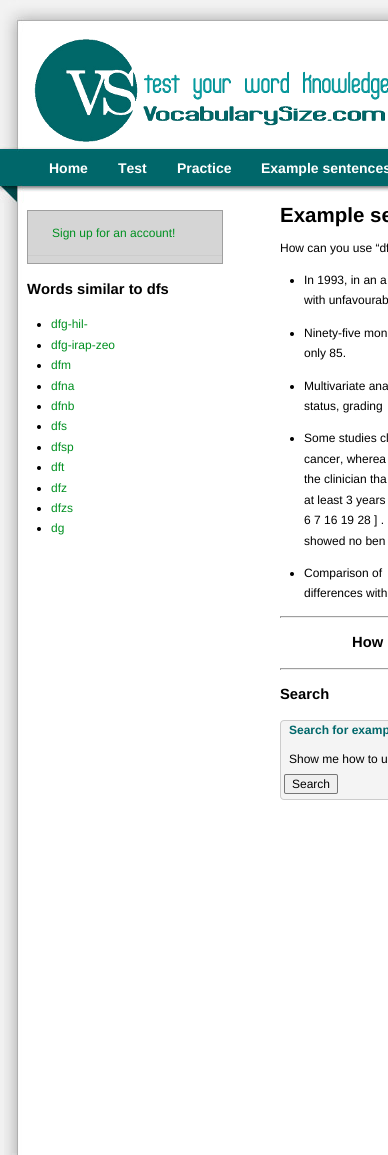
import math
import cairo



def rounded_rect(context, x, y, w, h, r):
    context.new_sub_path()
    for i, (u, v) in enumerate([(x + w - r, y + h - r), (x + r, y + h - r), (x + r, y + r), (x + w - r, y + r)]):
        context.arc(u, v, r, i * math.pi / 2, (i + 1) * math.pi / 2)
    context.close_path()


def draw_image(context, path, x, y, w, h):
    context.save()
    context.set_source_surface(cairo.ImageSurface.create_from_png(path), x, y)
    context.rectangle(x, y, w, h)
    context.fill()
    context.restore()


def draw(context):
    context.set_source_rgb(241 / 255, 241 / 255, 241 / 255)
    context.paint()
    draw_image(context, "images/1.png", 4, 203, 384, 952)
    draw_image(context, "images/2.png", 0, 0, 388, 203)
    draw_image(context, "images/3.png", 34, 39, 354, 103)
    context.set_source_rgb(213 / 255, 213 / 255, 213 / 255)
    context.rectangle(27.5, 210.5, 195, 53)
    context.fill_preserve()
    context.set_source_rgb(159 / 255, 159 / 255, 159 / 255)
    context.set_line_width(1)
    context.stroke()
    context.set_source_rgb(204 / 255, 204 / 255, 204 / 255)
    context.rectangle(28, 255, 194, 1)
    context.fill()
    context.set_source_rgb(0, 0, 0)
    context.arc(39, 325, 2, 0, 2 * math.pi)
    context.fill()
    context.arc(39, 346, 2, 0, 2 * math.pi)
    context.fill()
    context.arc(39, 366, 2, 0, 2 * math.pi)
    context.fill()
    context.arc(39, 387, 2, 0, 2 * math.pi)
    context.fill()
    context.arc(39, 407, 2, 0, 2 * math.pi)
    context.fill()
    context.arc(39, 427, 2, 0, 2 * math.pi)
    context.fill()
    context.arc(39, 448, 2, 0, 2 * math.pi)
    context.fill()
    context.arc(39, 468, 2, 0, 2 * math.pi)
    context.fill()
    context.arc(39, 489, 2, 0, 2 * math.pi)
    context.fill()
    context.arc(39, 509, 2, 0, 2 * math.pi)
    context.fill()
    context.arc(39, 529, 2, 0, 2 * math.pi)
    context.fill()
    context.arc(292, 281, 2, 0, 2 * math.pi)
    context.fill()
    context.arc(292, 334, 2, 0, 2 * math.pi)
    context.fill()
    context.arc(292, 387, 2, 0, 2 * math.pi)
    context.fill()
    context.arc(292, 439, 2, 0, 2 * math.pi)
    context.fill()
    context.arc(292, 574, 2, 0, 2 * math.pi)
    context.fill()
    context.set_source_rgb(159 / 255, 159 / 255, 159 / 255)
    context.rectangle(280, 616, 108, 1)
    context.fill()
    context.set_source_rgb(238 / 255, 238 / 255, 238 / 255)
    context.rectangle(280, 617, 108, 1)
    context.fill()
    context.set_source_rgb(159 / 255, 159 / 255, 159 / 255)
    context.rectangle(280, 616, 1, 2)
    context.fill()
    context.rectangle(280, 668, 108, 1)
    context.fill()
    context.set_source_rgb(238 / 255, 238 / 255, 238 / 255)
    context.rectangle(280, 669, 108, 1)
    context.fill()
    context.set_source_rgb(159 / 255, 159 / 255, 159 / 255)
    context.rectangle(280, 668, 1, 2)
    context.fill()
    context.set_source_rgb(244 / 255, 244 / 255, 244 / 255)
    rounded_rect(context, 280.5, 720.5, 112, 79, 3.5)
    context.fill_preserve()
    context.set_source_rgb(204 / 255, 204 / 255, 204 / 255)
    context.stroke()
    context.set_source_rgb(239 / 255, 239 / 255, 239 / 255)
    rounded_rect(context, 284.5, 774.5, 53, 19, 1.5)
    context.fill_preserve()
    context.set_source_rgb(118 / 255, 118 / 255, 118 / 255)
    context.stroke()
    draw_image(context, "images/4.png", 12, 1153, 5, 2)
    context.select_font_face("Liberation Sans", cairo.FontSlant.NORMAL, cairo.FontWeight.BOLD)
    context.set_font_size(14)
    context.set_source_rgb(1, 1, 1)
    context.move_to(49, 173)
    context.show_text("Home")
    context.move_to(118, 173)
    context.show_text("Test")
    context.move_to(177, 173)
    context.show_text("Practice")
    context.move_to(261, 173)
    context.show_text("Example sentences")
    context.select_font_face("Liberation Sans")
    context.set_font_size(12)
    context.set_source_rgb(0, 144 / 255, 32 / 255)
    context.move_to(52, 237)
    context.show_text("Sign up for an account!")
    context.select_font_face("Liberation Sans", cairo.FontSlant.NORMAL, cairo.FontWeight.BOLD)
    context.set_font_size(14.75)
    context.set_source_rgb(0, 0, 0)
    context.move_to(27, 294)
    context.show_text("Words similar to dfs")
    context.select_font_face("Liberation Sans")
    context.set_font_size(12)
    context.set_source_rgb(0, 144 / 255, 32 / 255)
    context.move_to(51, 328)
    context.show_text("dfg-hil-")
    context.move_to(51, 349)
    context.show_text("dfg-irap-zeo")
    context.move_to(51, 369)
    context.show_text("dfm")
    context.move_to(51, 390)
    context.show_text("dfna")
    context.move_to(51, 410)
    context.show_text("dfnb")
    context.move_to(51, 430)
    context.show_text("dfs")
    context.move_to(51, 451)
    context.show_text("dfsp")
    context.move_to(51, 471)
    context.show_text("dft")
    context.move_to(51, 492)
    context.show_text("dfz")
    context.move_to(51, 512)
    context.show_text("dfzs")
    context.move_to(51, 532)
    context.show_text("dg")
    context.select_font_face("Liberation Sans", cairo.FontSlant.NORMAL, cairo.FontWeight.BOLD)
    context.set_font_size(20.5)
    context.set_source_rgb(0, 0, 0)
    context.move_to(280, 222)
    context.show_text("Example se")
    context.select_font_face("Liberation Sans")
    context.set_font_size(12)
    context.move_to(280, 252)
    context.show_text("How can you use “df")
    context.move_to(304, 284)
    context.show_text("In 1993, in an a")
    context.move_to(304, 304)
    context.show_text("with unfavourab")
    context.move_to(304, 337)
    context.show_text("Ninety-five mon")
    context.move_to(304, 357)
    context.show_text("only 85.")
    context.move_to(304, 390)
    context.show_text("Multivariate ana")
    context.move_to(304, 410)
    context.show_text("status, grading")
    context.move_to(304, 442)
    context.show_text("Some studies cl")
    context.move_to(304, 463)
    context.show_text("cancer, wherea")
    context.move_to(304, 483)
    context.show_text("the clinician tha")
    context.move_to(304, 504)
    context.show_text("at least 3 years")
    context.move_to(304, 524)
    context.show_text("6 7 16 19 28 ] .")
    context.move_to(304, 545)
    context.show_text("showed no ben")
    context.move_to(304, 577)
    context.show_text("Comparison of")
    context.move_to(304, 597)
    context.show_text("differences with")
    context.select_font_face("Liberation Sans", cairo.FontSlant.NORMAL, cairo.FontWeight.BOLD)
    context.set_font_size(14.75)
    context.move_to(352, 647)
    context.show_text("How")
    context.move_to(280, 699)
    context.show_text("Search")
    context.set_font_size(12)
    context.set_source_rgb(0, 103 / 255, 106 / 255)
    context.move_to(289, 734)
    context.show_text("Search for examp")
    context.select_font_face("Liberation Sans")
    context.set_source_rgb(0, 0, 0)
    context.move_to(289, 763)
    context.show_text("Show me how to u")
    context.move_to(292, 788)
    context.show_text("Search")


surface = cairo.ImageSurface(cairo.Format.RGB24, 388, 1155)
context = cairo.Context(surface)
options = cairo.FontOptions()
options.set_hint_metrics(cairo.HintMetrics.OFF)
options.set_hint_style(cairo.HintStyle.NONE)
context.set_font_options(options)
context.set_miter_limit(4)
draw(context)
surface.write_to_png("out.png")
